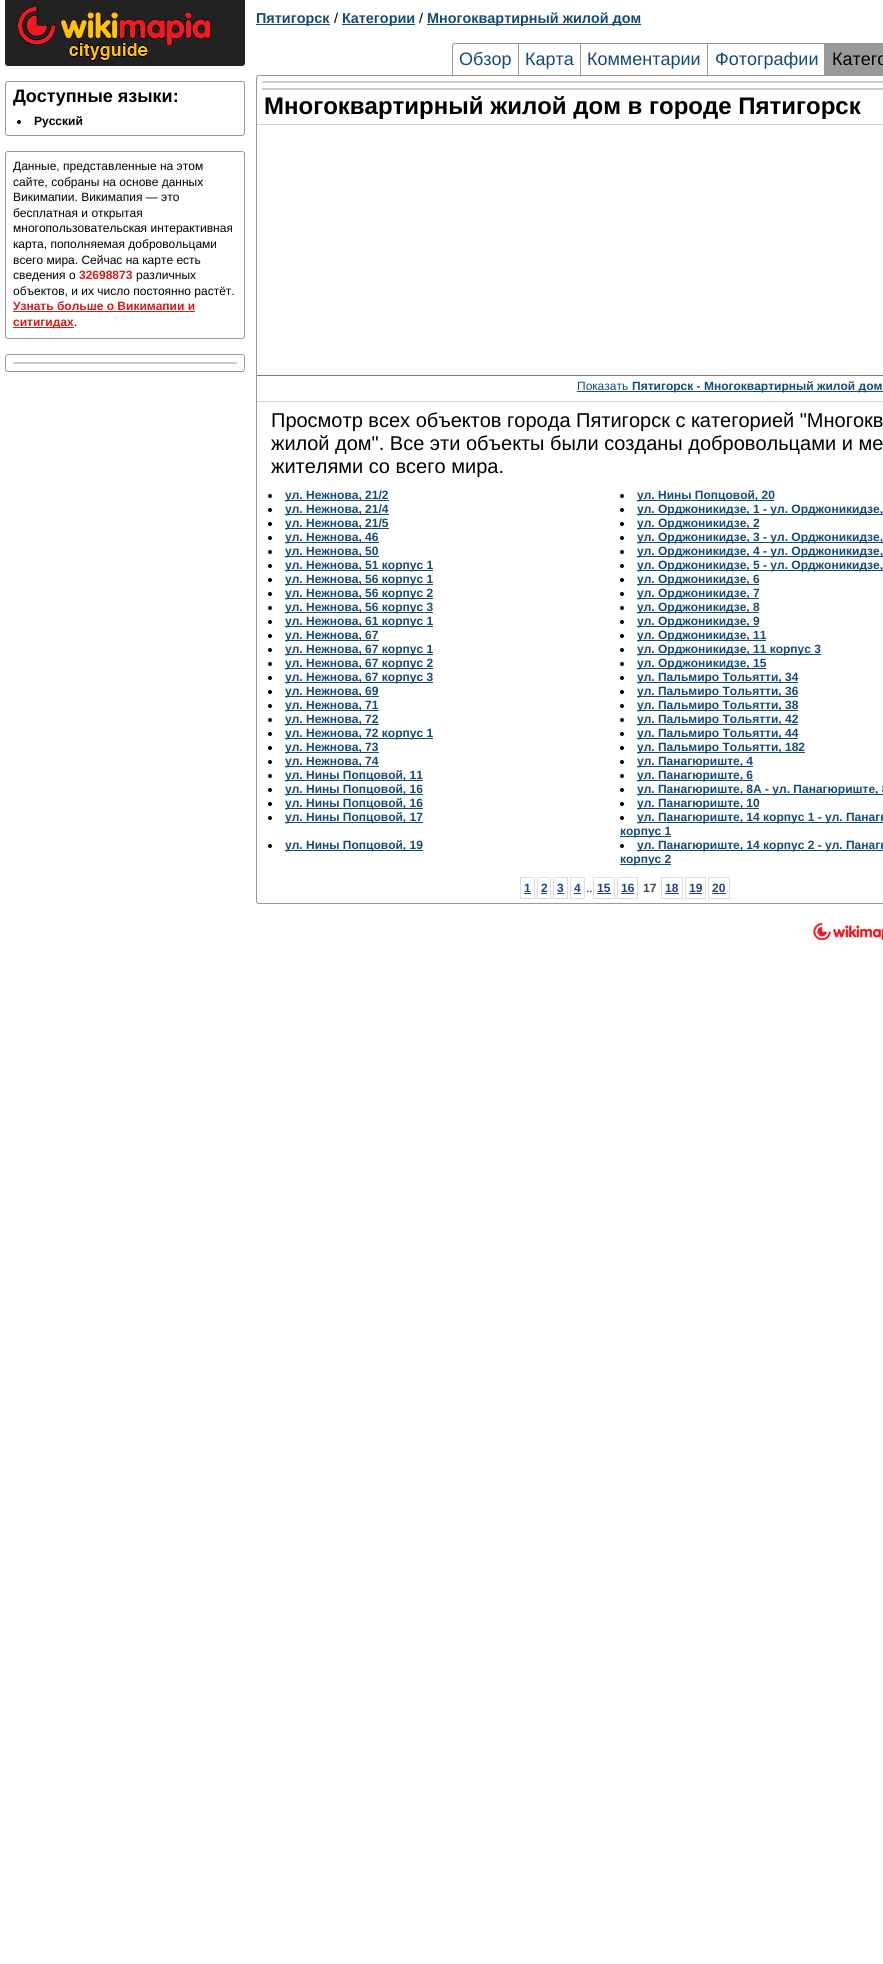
import math
import cairo



def rounded_rect(context, x, y, w, h, r):
    context.new_sub_path()
    for i, (u, v) in enumerate([(x + w - r, y + h - r), (x + r, y + h - r), (x + r, y + r), (x + w - r, y + r)]):
        context.arc(u, v, r, i * math.pi / 2, (i + 1) * math.pi / 2)
    context.close_path()


def draw_image(context, path, x, y, w, h):
    context.save()
    context.set_source_surface(cairo.ImageSurface.create_from_png(path), x, y)
    context.rectangle(x, y, w, h)
    context.fill()
    context.restore()


def draw(context):
    context.set_source_rgb(1, 1, 1)
    context.paint()
    context.set_source_rgb(20 / 255, 75 / 255, 120 / 255)
    context.rectangle(256, 24, 74, 1)
    context.fill()
    context.rectangle(342, 24, 73, 1)
    context.fill()
    context.rectangle(427, 24, 214, 1)
    context.fill()
    context.new_path()
    context.move_to(455, 43.5)
    context.line_to(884, 43.5)
    context.curve_to(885.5, 43.5, 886.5, 44.5, 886.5, 46)
    context.line_to(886.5, 75.5)
    context.line_to(452.5, 75.5)
    context.line_to(452.5, 46)
    context.curve_to(452.5, 44.5, 453.5, 43.5, 455, 43.5)
    context.close_path()
    context.set_source_rgb(153 / 255, 153 / 255, 153 / 255)
    context.set_line_width(1)
    context.stroke()
    context.rectangle(518, 44, 1, 31)
    context.fill()
    context.rectangle(580, 44, 1, 31)
    context.fill()
    context.rectangle(707, 44, 1, 31)
    context.fill()
    context.rectangle(824, 44, 59, 31)
    context.fill()
    context.set_source_rgb(34 / 255, 34 / 255, 34 / 255)
    context.new_path()
    context.move_to(5.5, 0.5)
    context.line_to(244.5, 0.5)
    context.line_to(244.5, 63)
    context.curve_to(244.5, 64.5, 243.5, 65.5, 242, 65.5)
    context.line_to(8, 65.5)
    context.curve_to(6.5, 65.5, 5.5, 64.5, 5.5, 63)
    context.close_path()
    context.fill_preserve()
    context.stroke()
    draw_image(context, "images/1.png", 18, 7, 192, 54)
    rounded_rect(context, 5.5, 81.5, 239, 54, 2.5)
    context.set_source_rgb(153 / 255, 153 / 255, 153 / 255)
    context.stroke()
    context.set_source_rgb(0, 0, 0)
    context.arc(19, 122, 2, 0, 2 * math.pi)
    context.fill()
    rounded_rect(context, 5.5, 151.5, 239, 187, 2.5)
    context.set_source_rgb(153 / 255, 153 / 255, 153 / 255)
    context.stroke()
    context.set_source_rgb(215 / 255, 26 / 255, 26 / 255)
    context.rectangle(13, 311, 182, 1)
    context.fill()
    context.rectangle(13, 327, 61, 1)
    context.fill()
    rounded_rect(context, 5.5, 354.5, 239, 17, 2.5)
    context.set_source_rgb(153 / 255, 153 / 255, 153 / 255)
    context.stroke()
    context.set_source_rgb(204 / 255, 204 / 255, 204 / 255)
    context.rectangle(13, 362, 224, 2)
    context.fill()
    context.new_path()
    context.move_to(259, 75.5)
    context.line_to(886.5, 75.5)
    context.line_to(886.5, 901)
    context.curve_to(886.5, 902.5, 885.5, 903.5, 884, 903.5)
    context.line_to(259, 903.5)
    context.curve_to(257.5, 903.5, 256.5, 902.5, 256.5, 901)
    context.line_to(256.5, 78)
    context.curve_to(256.5, 76.5, 257.5, 75.5, 259, 75.5)
    context.close_path()
    context.set_source_rgb(153 / 255, 153 / 255, 153 / 255)
    context.stroke()
    context.set_source_rgb(204 / 255, 204 / 255, 204 / 255)
    context.rectangle(262, 81, 621, 2)
    context.fill()
    context.rectangle(262, 88, 621, 2)
    context.fill()
    context.set_source_rgb(213 / 255, 213 / 255, 213 / 255)
    context.rectangle(257, 124, 626, 1)
    context.fill()
    context.set_source_rgb(119 / 255, 119 / 255, 119 / 255)
    context.rectangle(257, 375, 626, 1)
    context.fill()
    context.set_source_rgb(20 / 255, 75 / 255, 120 / 255)
    context.rectangle(577, 391, 306, 1)
    context.fill()
    context.set_source_rgb(213 / 255, 213 / 255, 213 / 255)
    context.rectangle(257, 401, 626, 1)
    context.fill()
    context.set_source_rgb(0, 0, 0)
    context.arc(270, 496, 2, 0, 2 * math.pi)
    context.fill()
    context.set_source_rgb(20 / 255, 75 / 255, 120 / 255)
    context.rectangle(285, 500, 104, 1)
    context.fill()
    context.set_source_rgb(0, 0, 0)
    context.arc(622, 496, 2, 0, 2 * math.pi)
    context.fill()
    context.set_source_rgb(20 / 255, 75 / 255, 120 / 255)
    context.rectangle(637, 500, 137, 1)
    context.fill()
    context.set_source_rgb(0, 0, 0)
    context.arc(270, 510, 2, 0, 2 * math.pi)
    context.fill()
    context.set_source_rgb(20 / 255, 75 / 255, 120 / 255)
    context.rectangle(285, 514, 104, 1)
    context.fill()
    context.set_source_rgb(0, 0, 0)
    context.arc(622, 510, 2, 0, 2 * math.pi)
    context.fill()
    context.set_source_rgb(20 / 255, 75 / 255, 120 / 255)
    context.rectangle(637, 514, 246, 1)
    context.fill()
    context.set_source_rgb(0, 0, 0)
    context.arc(270, 524, 2, 0, 2 * math.pi)
    context.fill()
    context.set_source_rgb(20 / 255, 75 / 255, 120 / 255)
    context.rectangle(285, 528, 104, 1)
    context.fill()
    context.set_source_rgb(0, 0, 0)
    context.arc(622, 524, 2, 0, 2 * math.pi)
    context.fill()
    context.set_source_rgb(20 / 255, 75 / 255, 120 / 255)
    context.rectangle(637, 528, 122, 1)
    context.fill()
    context.set_source_rgb(0, 0, 0)
    context.arc(270, 538, 2, 0, 2 * math.pi)
    context.fill()
    context.set_source_rgb(20 / 255, 75 / 255, 120 / 255)
    context.rectangle(285, 542, 94, 1)
    context.fill()
    context.set_source_rgb(0, 0, 0)
    context.arc(622, 538, 2, 0, 2 * math.pi)
    context.fill()
    context.set_source_rgb(20 / 255, 75 / 255, 120 / 255)
    context.rectangle(637, 542, 246, 1)
    context.fill()
    context.set_source_rgb(0, 0, 0)
    context.arc(270, 552, 2, 0, 2 * math.pi)
    context.fill()
    context.set_source_rgb(20 / 255, 75 / 255, 120 / 255)
    context.rectangle(285, 556, 94, 1)
    context.fill()
    context.set_source_rgb(0, 0, 0)
    context.arc(622, 552, 2, 0, 2 * math.pi)
    context.fill()
    context.set_source_rgb(20 / 255, 75 / 255, 120 / 255)
    context.rectangle(637, 556, 246, 1)
    context.fill()
    context.set_source_rgb(0, 0, 0)
    context.arc(270, 566, 2, 0, 2 * math.pi)
    context.fill()
    context.set_source_rgb(20 / 255, 75 / 255, 120 / 255)
    context.rectangle(285, 570, 148, 1)
    context.fill()
    context.set_source_rgb(0, 0, 0)
    context.arc(622, 566, 2, 0, 2 * math.pi)
    context.fill()
    context.set_source_rgb(20 / 255, 75 / 255, 120 / 255)
    context.rectangle(637, 570, 246, 1)
    context.fill()
    context.set_source_rgb(0, 0, 0)
    context.arc(270, 580, 2, 0, 2 * math.pi)
    context.fill()
    context.set_source_rgb(20 / 255, 75 / 255, 120 / 255)
    context.rectangle(285, 584, 148, 1)
    context.fill()
    context.set_source_rgb(0, 0, 0)
    context.arc(622, 580, 2, 0, 2 * math.pi)
    context.fill()
    context.set_source_rgb(20 / 255, 75 / 255, 120 / 255)
    context.rectangle(637, 584, 122, 1)
    context.fill()
    context.set_source_rgb(0, 0, 0)
    context.arc(270, 594, 2, 0, 2 * math.pi)
    context.fill()
    context.set_source_rgb(20 / 255, 75 / 255, 120 / 255)
    context.rectangle(285, 598, 148, 1)
    context.fill()
    context.set_source_rgb(0, 0, 0)
    context.arc(622, 594, 2, 0, 2 * math.pi)
    context.fill()
    context.set_source_rgb(20 / 255, 75 / 255, 120 / 255)
    context.rectangle(637, 598, 122, 1)
    context.fill()
    context.set_source_rgb(0, 0, 0)
    context.arc(270, 608, 2, 0, 2 * math.pi)
    context.fill()
    context.set_source_rgb(20 / 255, 75 / 255, 120 / 255)
    context.rectangle(285, 612, 148, 1)
    context.fill()
    context.set_source_rgb(0, 0, 0)
    context.arc(622, 608, 2, 0, 2 * math.pi)
    context.fill()
    context.set_source_rgb(20 / 255, 75 / 255, 120 / 255)
    context.rectangle(637, 612, 122, 1)
    context.fill()
    context.set_source_rgb(0, 0, 0)
    context.arc(270, 622, 2, 0, 2 * math.pi)
    context.fill()
    context.set_source_rgb(20 / 255, 75 / 255, 120 / 255)
    context.rectangle(285, 626, 148, 1)
    context.fill()
    context.set_source_rgb(0, 0, 0)
    context.arc(622, 622, 2, 0, 2 * math.pi)
    context.fill()
    context.set_source_rgb(20 / 255, 75 / 255, 120 / 255)
    context.rectangle(637, 626, 122, 1)
    context.fill()
    context.set_source_rgb(0, 0, 0)
    context.arc(270, 636, 2, 0, 2 * math.pi)
    context.fill()
    context.set_source_rgb(20 / 255, 75 / 255, 120 / 255)
    context.rectangle(285, 640, 94, 1)
    context.fill()
    context.set_source_rgb(0, 0, 0)
    context.arc(622, 636, 2, 0, 2 * math.pi)
    context.fill()
    context.set_source_rgb(20 / 255, 75 / 255, 120 / 255)
    context.rectangle(637, 640, 129, 1)
    context.fill()
    context.set_source_rgb(0, 0, 0)
    context.arc(270, 650, 2, 0, 2 * math.pi)
    context.fill()
    context.set_source_rgb(20 / 255, 75 / 255, 120 / 255)
    context.rectangle(285, 654, 148, 1)
    context.fill()
    context.set_source_rgb(0, 0, 0)
    context.arc(622, 650, 2, 0, 2 * math.pi)
    context.fill()
    context.set_source_rgb(20 / 255, 75 / 255, 120 / 255)
    context.rectangle(637, 654, 184, 1)
    context.fill()
    context.set_source_rgb(0, 0, 0)
    context.arc(270, 664, 2, 0, 2 * math.pi)
    context.fill()
    context.set_source_rgb(20 / 255, 75 / 255, 120 / 255)
    context.rectangle(285, 668, 148, 1)
    context.fill()
    context.set_source_rgb(0, 0, 0)
    context.arc(622, 664, 2, 0, 2 * math.pi)
    context.fill()
    context.set_source_rgb(20 / 255, 75 / 255, 120 / 255)
    context.rectangle(637, 668, 129, 1)
    context.fill()
    context.set_source_rgb(0, 0, 0)
    context.arc(270, 678, 2, 0, 2 * math.pi)
    context.fill()
    context.set_source_rgb(20 / 255, 75 / 255, 120 / 255)
    context.rectangle(285, 682, 148, 1)
    context.fill()
    context.set_source_rgb(0, 0, 0)
    context.arc(622, 678, 2, 0, 2 * math.pi)
    context.fill()
    context.set_source_rgb(20 / 255, 75 / 255, 120 / 255)
    context.rectangle(637, 682, 161, 1)
    context.fill()
    context.set_source_rgb(0, 0, 0)
    context.arc(270, 692, 2, 0, 2 * math.pi)
    context.fill()
    context.set_source_rgb(20 / 255, 75 / 255, 120 / 255)
    context.rectangle(285, 696, 94, 1)
    context.fill()
    context.set_source_rgb(0, 0, 0)
    context.arc(622, 692, 2, 0, 2 * math.pi)
    context.fill()
    context.set_source_rgb(20 / 255, 75 / 255, 120 / 255)
    context.rectangle(637, 696, 161, 1)
    context.fill()
    context.set_source_rgb(0, 0, 0)
    context.arc(270, 706, 2, 0, 2 * math.pi)
    context.fill()
    context.set_source_rgb(20 / 255, 75 / 255, 120 / 255)
    context.rectangle(285, 710, 94, 1)
    context.fill()
    context.set_source_rgb(0, 0, 0)
    context.arc(622, 706, 2, 0, 2 * math.pi)
    context.fill()
    context.set_source_rgb(20 / 255, 75 / 255, 120 / 255)
    context.rectangle(637, 710, 161, 1)
    context.fill()
    context.set_source_rgb(0, 0, 0)
    context.arc(270, 720, 2, 0, 2 * math.pi)
    context.fill()
    context.set_source_rgb(20 / 255, 75 / 255, 120 / 255)
    context.rectangle(285, 724, 94, 1)
    context.fill()
    context.set_source_rgb(0, 0, 0)
    context.arc(622, 720, 2, 0, 2 * math.pi)
    context.fill()
    context.set_source_rgb(20 / 255, 75 / 255, 120 / 255)
    context.rectangle(637, 724, 161, 1)
    context.fill()
    context.set_source_rgb(0, 0, 0)
    context.arc(270, 734, 2, 0, 2 * math.pi)
    context.fill()
    context.set_source_rgb(20 / 255, 75 / 255, 120 / 255)
    context.rectangle(285, 738, 148, 1)
    context.fill()
    context.set_source_rgb(0, 0, 0)
    context.arc(622, 734, 2, 0, 2 * math.pi)
    context.fill()
    context.set_source_rgb(20 / 255, 75 / 255, 120 / 255)
    context.rectangle(637, 738, 161, 1)
    context.fill()
    context.set_source_rgb(0, 0, 0)
    context.arc(270, 748, 2, 0, 2 * math.pi)
    context.fill()
    context.set_source_rgb(20 / 255, 75 / 255, 120 / 255)
    context.rectangle(285, 752, 94, 1)
    context.fill()
    context.set_source_rgb(0, 0, 0)
    context.arc(622, 748, 2, 0, 2 * math.pi)
    context.fill()
    context.set_source_rgb(20 / 255, 75 / 255, 120 / 255)
    context.rectangle(637, 752, 168, 1)
    context.fill()
    context.set_source_rgb(0, 0, 0)
    context.arc(270, 762, 2, 0, 2 * math.pi)
    context.fill()
    context.set_source_rgb(20 / 255, 75 / 255, 120 / 255)
    context.rectangle(285, 766, 94, 1)
    context.fill()
    context.set_source_rgb(0, 0, 0)
    context.arc(622, 762, 2, 0, 2 * math.pi)
    context.fill()
    context.set_source_rgb(20 / 255, 75 / 255, 120 / 255)
    context.rectangle(637, 766, 116, 1)
    context.fill()
    context.set_source_rgb(0, 0, 0)
    context.arc(270, 776, 2, 0, 2 * math.pi)
    context.fill()
    context.set_source_rgb(20 / 255, 75 / 255, 120 / 255)
    context.rectangle(285, 780, 138, 1)
    context.fill()
    context.set_source_rgb(0, 0, 0)
    context.arc(622, 776, 2, 0, 2 * math.pi)
    context.fill()
    context.set_source_rgb(20 / 255, 75 / 255, 120 / 255)
    context.rectangle(637, 780, 116, 1)
    context.fill()
    context.set_source_rgb(0, 0, 0)
    context.arc(270, 790, 2, 0, 2 * math.pi)
    context.fill()
    context.set_source_rgb(20 / 255, 75 / 255, 120 / 255)
    context.rectangle(285, 794, 138, 1)
    context.fill()
    context.set_source_rgb(0, 0, 0)
    context.arc(622, 790, 2, 0, 2 * math.pi)
    context.fill()
    context.set_source_rgb(20 / 255, 75 / 255, 120 / 255)
    context.rectangle(637, 794, 246, 1)
    context.fill()
    context.set_source_rgb(0, 0, 0)
    context.arc(270, 804, 2, 0, 2 * math.pi)
    context.fill()
    context.set_source_rgb(20 / 255, 75 / 255, 120 / 255)
    context.rectangle(285, 808, 138, 1)
    context.fill()
    context.set_source_rgb(0, 0, 0)
    context.arc(622, 804, 2, 0, 2 * math.pi)
    context.fill()
    context.set_source_rgb(20 / 255, 75 / 255, 120 / 255)
    context.rectangle(637, 808, 122, 1)
    context.fill()
    context.set_source_rgb(0, 0, 0)
    context.arc(270, 818, 2, 0, 2 * math.pi)
    context.fill()
    context.set_source_rgb(20 / 255, 75 / 255, 120 / 255)
    context.rectangle(285, 822, 138, 1)
    context.fill()
    context.set_source_rgb(0, 0, 0)
    context.arc(622, 818, 2, 0, 2 * math.pi)
    context.fill()
    context.set_source_rgb(20 / 255, 75 / 255, 120 / 255)
    context.rectangle(637, 822, 246, 1)
    context.fill()
    context.rectangle(620, 836, 51, 1)
    context.fill()
    context.set_source_rgb(0, 0, 0)
    context.arc(270, 846, 2, 0, 2 * math.pi)
    context.fill()
    context.set_source_rgb(20 / 255, 75 / 255, 120 / 255)
    context.rectangle(285, 850, 138, 1)
    context.fill()
    context.set_source_rgb(0, 0, 0)
    context.arc(622, 846, 2, 0, 2 * math.pi)
    context.fill()
    context.set_source_rgb(20 / 255, 75 / 255, 120 / 255)
    context.rectangle(637, 850, 246, 1)
    context.fill()
    context.rectangle(620, 864, 51, 1)
    context.fill()
    context.rectangle(520.5, 877.5, 14, 21)
    context.set_source_rgb(221 / 255, 221 / 255, 221 / 255)
    context.stroke()
    context.set_source_rgb(39 / 255, 64 / 255, 139 / 255)
    context.rectangle(524, 893, 7, 1)
    context.fill()
    context.rectangle(537.5, 877.5, 13, 21)
    context.set_source_rgb(221 / 255, 221 / 255, 221 / 255)
    context.stroke()
    context.set_source_rgb(39 / 255, 64 / 255, 139 / 255)
    context.rectangle(541, 893, 6, 1)
    context.fill()
    context.rectangle(553.5, 877.5, 14, 21)
    context.set_source_rgb(221 / 255, 221 / 255, 221 / 255)
    context.stroke()
    context.set_source_rgb(39 / 255, 64 / 255, 139 / 255)
    context.rectangle(557, 893, 7, 1)
    context.fill()
    context.rectangle(570.5, 877.5, 14, 21)
    context.set_source_rgb(221 / 255, 221 / 255, 221 / 255)
    context.stroke()
    context.set_source_rgb(39 / 255, 64 / 255, 139 / 255)
    context.rectangle(574, 893, 7, 1)
    context.fill()
    context.rectangle(593.5, 877.5, 21, 21)
    context.set_source_rgb(221 / 255, 221 / 255, 221 / 255)
    context.stroke()
    context.set_source_rgb(39 / 255, 64 / 255, 139 / 255)
    context.rectangle(597, 893, 14, 1)
    context.fill()
    context.rectangle(617.5, 877.5, 20, 21)
    context.set_source_rgb(221 / 255, 221 / 255, 221 / 255)
    context.stroke()
    context.set_source_rgb(39 / 255, 64 / 255, 139 / 255)
    context.rectangle(621, 893, 13, 1)
    context.fill()
    context.rectangle(661.5, 877.5, 21, 21)
    context.set_source_rgb(221 / 255, 221 / 255, 221 / 255)
    context.stroke()
    context.set_source_rgb(39 / 255, 64 / 255, 139 / 255)
    context.rectangle(665, 893, 14, 1)
    context.fill()
    context.rectangle(685.5, 877.5, 20, 21)
    context.set_source_rgb(221 / 255, 221 / 255, 221 / 255)
    context.stroke()
    context.set_source_rgb(39 / 255, 64 / 255, 139 / 255)
    context.rectangle(689, 893, 13, 1)
    context.fill()
    context.rectangle(708.5, 877.5, 21, 21)
    context.set_source_rgb(221 / 255, 221 / 255, 221 / 255)
    context.stroke()
    context.set_source_rgb(39 / 255, 64 / 255, 139 / 255)
    context.rectangle(712, 893, 14, 1)
    context.fill()
    draw_image(context, "images/2.png", 813, 923, 70, 17)
    context.select_font_face("Liberation Sans", cairo.FontSlant.NORMAL, cairo.FontWeight.BOLD)
    context.set_font_size(14.4)
    context.set_source_rgb(20 / 255, 75 / 255, 120 / 255)
    context.move_to(256, 23)
    context.show_text("Пятигорск")
    context.select_font_face("Liberation Sans")
    context.set_source_rgb(0, 0, 0)
    context.move_to(334, 23)
    context.show_text("/")
    context.select_font_face("Liberation Sans", cairo.FontSlant.NORMAL, cairo.FontWeight.BOLD)
    context.set_source_rgb(20 / 255, 75 / 255, 120 / 255)
    context.move_to(342, 23)
    context.show_text("Категории")
    context.select_font_face("Liberation Sans")
    context.set_source_rgb(0, 0, 0)
    context.move_to(419, 23)
    context.show_text("/")
    context.select_font_face("Liberation Sans", cairo.FontSlant.NORMAL, cairo.FontWeight.BOLD)
    context.set_source_rgb(20 / 255, 75 / 255, 120 / 255)
    context.move_to(427, 23)
    context.show_text("Многоквартирный жилой дом")
    context.select_font_face("Liberation Sans")
    context.set_font_size(18)
    context.move_to(459, 65)
    context.show_text("Обзор")
    context.move_to(525, 65)
    context.show_text("Карта")
    context.move_to(587, 65)
    context.show_text("Комментарии")
    context.move_to(715, 65)
    context.show_text("Фотографии")
    context.set_source_rgb(0, 0, 0)
    context.move_to(832, 65)
    context.show_text("Катего")
    context.select_font_face("Liberation Sans", cairo.FontSlant.NORMAL, cairo.FontWeight.BOLD)
    context.move_to(13, 102)
    context.show_text("Доступные языки:")
    context.set_font_size(12)
    context.move_to(34, 125)
    context.show_text("Русский")
    context.select_font_face("Liberation Sans")
    context.move_to(13, 170)
    context.show_text("Данные, представленные на этом")
    context.move_to(13, 186)
    context.show_text("сайте, собраны на основе данных")
    context.move_to(13, 201)
    context.show_text("Викимапии. Викимапия — это")
    context.move_to(13, 217)
    context.show_text("бесплатная и открытая")
    context.move_to(13, 232)
    context.show_text("многопользовательская интерактивная")
    context.move_to(13, 248)
    context.show_text("карта, пополняемая добровольцами")
    context.move_to(13, 264)
    context.show_text("всего мира. Сейчас на карте есть")
    context.move_to(13, 279)
    context.show_text("сведения о")
    context.select_font_face("Liberation Sans", cairo.FontSlant.NORMAL, cairo.FontWeight.BOLD)
    context.set_source_rgb(215 / 255, 26 / 255, 26 / 255)
    context.move_to(79, 279)
    context.show_text("32698873")
    context.select_font_face("Liberation Sans")
    context.set_source_rgb(0, 0, 0)
    context.move_to(136, 279)
    context.show_text("различных")
    context.move_to(13, 295)
    context.show_text("объектов, и их число постоянно растёт.")
    context.select_font_face("Liberation Sans", cairo.FontSlant.NORMAL, cairo.FontWeight.BOLD)
    context.set_source_rgb(215 / 255, 26 / 255, 26 / 255)
    context.move_to(13, 310)
    context.show_text("Узнать больше о Викимапии и")
    context.move_to(13, 326)
    context.show_text("ситигидах")
    context.select_font_face("Liberation Sans")
    context.set_source_rgb(0, 0, 0)
    context.move_to(74, 326)
    context.show_text(".")
    context.select_font_face("Liberation Sans", cairo.FontSlant.NORMAL, cairo.FontWeight.BOLD)
    context.set_font_size(24)
    context.move_to(264, 114)
    context.show_text("Многоквартирный жилой дом в городе Пятигорск")
    context.select_font_face("Liberation Sans")
    context.set_font_size(12)
    context.set_source_rgb(20 / 255, 75 / 255, 120 / 255)
    context.move_to(577, 390)
    context.show_text("Показать")
    context.select_font_face("Liberation Sans", cairo.FontSlant.NORMAL, cairo.FontWeight.BOLD)
    context.move_to(632, 390)
    context.show_text("Пятигорск - Многоквартирный жилой дом")
    context.select_font_face("Liberation Sans")
    context.set_font_size(20)
    context.set_source_rgb(0, 0, 0)
    context.move_to(271, 427)
    context.show_text("Просмотр всех объектов города Пятигорск с категорией \"Многокв")
    context.move_to(271, 450)
    context.show_text("жилой дом\". Все эти объекты были созданы добровольцами и ме")
    context.move_to(271, 473)
    context.show_text("жителями со всего мира.")
    context.select_font_face("Liberation Sans", cairo.FontSlant.NORMAL, cairo.FontWeight.BOLD)
    context.set_font_size(12)
    context.set_source_rgb(20 / 255, 75 / 255, 120 / 255)
    context.move_to(285, 499)
    context.show_text("ул. Нежнова, 21/2")
    context.move_to(637, 499)
    context.show_text("ул. Нины Попцовой, 20")
    context.move_to(285, 513)
    context.show_text("ул. Нежнова, 21/4")
    context.move_to(637, 513)
    context.show_text("ул. Орджоникидзе, 1 - ул. Орджоникидзе,")
    context.move_to(285, 527)
    context.show_text("ул. Нежнова, 21/5")
    context.move_to(637, 527)
    context.show_text("ул. Орджоникидзе, 2")
    context.move_to(285, 541)
    context.show_text("ул. Нежнова, 46")
    context.move_to(637, 541)
    context.show_text("ул. Орджоникидзе, 3 - ул. Орджоникидзе,")
    context.move_to(285, 555)
    context.show_text("ул. Нежнова, 50")
    context.move_to(637, 555)
    context.show_text("ул. Орджоникидзе, 4 - ул. Орджоникидзе,")
    context.move_to(285, 569)
    context.show_text("ул. Нежнова, 51 корпус 1")
    context.move_to(637, 569)
    context.show_text("ул. Орджоникидзе, 5 - ул. Орджоникидзе,")
    context.move_to(285, 583)
    context.show_text("ул. Нежнова, 56 корпус 1")
    context.move_to(637, 583)
    context.show_text("ул. Орджоникидзе, 6")
    context.move_to(285, 597)
    context.show_text("ул. Нежнова, 56 корпус 2")
    context.move_to(637, 597)
    context.show_text("ул. Орджоникидзе, 7")
    context.move_to(285, 611)
    context.show_text("ул. Нежнова, 56 корпус 3")
    context.move_to(637, 611)
    context.show_text("ул. Орджоникидзе, 8")
    context.move_to(285, 625)
    context.show_text("ул. Нежнова, 61 корпус 1")
    context.move_to(637, 625)
    context.show_text("ул. Орджоникидзе, 9")
    context.move_to(285, 639)
    context.show_text("ул. Нежнова, 67")
    context.move_to(637, 639)
    context.show_text("ул. Орджоникидзе, 11")
    context.move_to(285, 653)
    context.show_text("ул. Нежнова, 67 корпус 1")
    context.move_to(637, 653)
    context.show_text("ул. Орджоникидзе, 11 корпус 3")
    context.move_to(285, 667)
    context.show_text("ул. Нежнова, 67 корпус 2")
    context.move_to(637, 667)
    context.show_text("ул. Орджоникидзе, 15")
    context.move_to(285, 681)
    context.show_text("ул. Нежнова, 67 корпус 3")
    context.move_to(637, 681)
    context.show_text("ул. Пальмиро Тольятти, 34")
    context.move_to(285, 695)
    context.show_text("ул. Нежнова, 69")
    context.move_to(637, 695)
    context.show_text("ул. Пальмиро Тольятти, 36")
    context.move_to(285, 709)
    context.show_text("ул. Нежнова, 71")
    context.move_to(637, 709)
    context.show_text("ул. Пальмиро Тольятти, 38")
    context.move_to(285, 723)
    context.show_text("ул. Нежнова, 72")
    context.move_to(637, 723)
    context.show_text("ул. Пальмиро Тольятти, 42")
    context.move_to(285, 737)
    context.show_text("ул. Нежнова, 72 корпус 1")
    context.move_to(637, 737)
    context.show_text("ул. Пальмиро Тольятти, 44")
    context.move_to(285, 751)
    context.show_text("ул. Нежнова, 73")
    context.move_to(637, 751)
    context.show_text("ул. Пальмиро Тольятти, 182")
    context.move_to(285, 765)
    context.show_text("ул. Нежнова, 74")
    context.move_to(637, 765)
    context.show_text("ул. Панагюриште, 4")
    context.move_to(285, 779)
    context.show_text("ул. Нины Попцовой, 11")
    context.move_to(637, 779)
    context.show_text("ул. Панагюриште, 6")
    context.move_to(285, 793)
    context.show_text("ул. Нины Попцовой, 16")
    context.move_to(637, 793)
    context.show_text("ул. Панагюриште, 8А - ул. Панагюриште, 8")
    context.move_to(285, 807)
    context.show_text("ул. Нины Попцовой, 16")
    context.move_to(637, 807)
    context.show_text("ул. Панагюриште, 10")
    context.move_to(285, 821)
    context.show_text("ул. Нины Попцовой, 17")
    context.move_to(637, 821)
    context.show_text("ул. Панагюриште, 14 корпус 1 - ул. Панагю")
    context.move_to(620, 835)
    context.show_text("корпус 1")
    context.move_to(285, 849)
    context.show_text("ул. Нины Попцовой, 19")
    context.move_to(637, 849)
    context.show_text("ул. Панагюриште, 14 корпус 2 - ул. Панагю")
    context.move_to(620, 863)
    context.show_text("корпус 2")
    context.set_source_rgb(39 / 255, 64 / 255, 139 / 255)
    context.move_to(524, 892)
    context.show_text("1")
    context.move_to(541, 892)
    context.show_text("2")
    context.move_to(557, 892)
    context.show_text("3")
    context.move_to(574, 892)
    context.show_text("4")
    context.select_font_face("Liberation Sans")
    context.set_source_rgb(0, 0, 0)
    context.move_to(586, 892)
    context.show_text("..")
    context.select_font_face("Liberation Sans", cairo.FontSlant.NORMAL, cairo.FontWeight.BOLD)
    context.set_source_rgb(39 / 255, 64 / 255, 139 / 255)
    context.move_to(597, 892)
    context.show_text("15")
    context.move_to(621, 892)
    context.show_text("16")
    context.set_source_rgb(68 / 255, 68 / 255, 68 / 255)
    context.move_to(643, 892)
    context.show_text("17")
    context.set_source_rgb(39 / 255, 64 / 255, 139 / 255)
    context.move_to(665, 892)
    context.show_text("18")
    context.move_to(689, 892)
    context.show_text("19")
    context.move_to(712, 892)
    context.show_text("20")


surface = cairo.ImageSurface(cairo.Format.RGB24, 883, 1964)
context = cairo.Context(surface)
options = cairo.FontOptions()
options.set_hint_metrics(cairo.HintMetrics.OFF)
options.set_hint_style(cairo.HintStyle.NONE)
context.set_font_options(options)
context.set_miter_limit(4)
draw(context)
surface.write_to_png("out.png")
